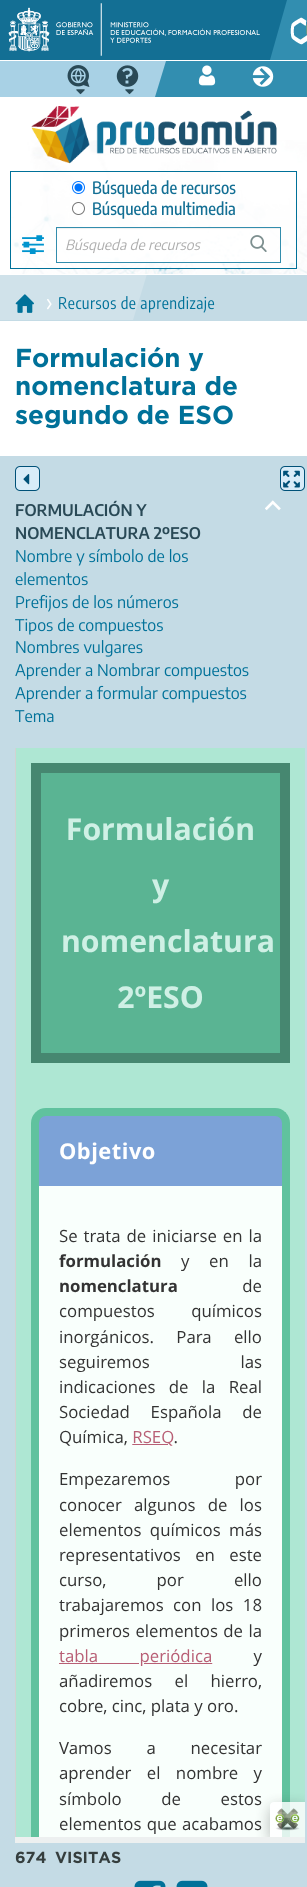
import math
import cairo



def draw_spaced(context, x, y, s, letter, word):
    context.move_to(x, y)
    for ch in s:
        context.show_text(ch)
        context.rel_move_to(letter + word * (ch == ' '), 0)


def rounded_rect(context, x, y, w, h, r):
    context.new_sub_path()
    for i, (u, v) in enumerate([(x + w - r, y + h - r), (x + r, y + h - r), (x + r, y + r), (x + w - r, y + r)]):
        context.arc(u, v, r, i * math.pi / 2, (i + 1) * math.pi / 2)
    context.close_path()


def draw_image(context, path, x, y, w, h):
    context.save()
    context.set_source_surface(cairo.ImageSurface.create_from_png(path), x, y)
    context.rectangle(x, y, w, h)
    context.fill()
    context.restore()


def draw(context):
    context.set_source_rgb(1, 1, 1)
    context.paint()
    context.set_source_rgb(19 / 255, 111 / 255, 148 / 255)
    context.rectangle(0, 0, 267, 60)
    context.fill()
    draw_image(context, "images/1.png", 8, 3, 252, 53)
    context.set_source_rgb(50 / 255, 142 / 255, 176 / 255)
    context.rectangle(270, 0, 37, 60)
    context.fill()
    context.set_source_rgb(19 / 255, 111 / 255, 148 / 255)
    context.new_path()
    context.move_to(267, 0)
    context.line_to(287, 0)
    context.line_to(270, 60)
    context.line_to(267, 60)
    context.close_path()
    context.fill()
    draw_image(context, "images/2.png", 290, 17, 17, 28)
    context.set_source_rgb(168 / 255, 209 / 255, 229 / 255)
    context.rectangle(0, 61, 166, 36)
    context.fill()
    draw_image(context, "images/3.png", 67, 65, 23, 22)
    draw_image(context, "images/4.png", 76, 89, 9, 6)
    draw_image(context, "images/5.png", 116, 65, 23, 22)
    draw_image(context, "images/4.png", 125, 89, 9, 6)
    context.set_source_rgb(50 / 255, 142 / 255, 176 / 255)
    context.new_path()
    context.move_to(182, 97)
    context.line_to(155, 97)
    context.line_to(166, 61)
    context.line_to(182, 61)
    context.close_path()
    context.fill()
    context.rectangle(182, 61, 125, 36)
    context.fill()
    draw_image(context, "images/6.png", 198, 65, 18, 21)
    draw_image(context, "images/7.png", 252, 66, 22, 21)
    draw_image(context, "images/8.png", 11, 140, 296, 134)
    draw_image(context, "images/9.png", 31, 106, 246, 58)
    context.set_source_rgba(1, 1, 1, 0.7)
    context.rectangle(10.5, 171.5, 286, 97)
    context.fill_preserve()
    context.set_source_rgb(0, 113 / 255, 153 / 255)
    context.set_line_width(1)
    context.stroke()
    context.arc(78.5, 187.5, 6, 0, 2 * math.pi)
    context.set_source_rgb(0, 117 / 255, 1)
    context.stroke()
    context.arc(78.5, 187.5, 4, 0, 2 * math.pi)
    context.fill()
    context.arc(78.5, 208.5, 6, 0, 2 * math.pi)
    context.set_source_rgb(118 / 255, 118 / 255, 118 / 255)
    context.stroke()
    draw_image(context, "images/10.png", 22, 235, 22, 19)
    context.set_source_rgba(1, 1, 1, 0.8)
    context.rectangle(57, 230, 213, 32)
    context.fill()
    context.set_source_rgb(240 / 255, 240 / 255, 240 / 255)
    context.rectangle(57, 228, 223, 1)
    context.fill()
    context.rectangle(56.5, 227.5, 224, 35)
    context.set_source_rgb(51 / 255, 141 / 255, 173 / 255)
    context.stroke()
    draw_image(context, "images/11.png", 250, 235, 17, 17)
    context.set_source_rgb(196 / 255, 219 / 255, 229 / 255)
    context.rectangle(0, 275, 307, 46)
    context.fill()
    context.save()
    context.rectangle(0, 275, 307, 46)
    context.clip()
    context.set_source_rgb(208 / 255, 226 / 255, 234 / 255)
    context.new_path()
    context.move_to(-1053, 274)
    context.line_to(147, 274)
    context.line_to(133, 320)
    context.line_to(-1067, 320)
    context.close_path()
    context.fill()
    context.restore()
    draw_image(context, "images/12.png", 15, 294, 19, 19)
    draw_image(context, "images/13.png", 47, 299, 5, 11)
    context.rectangle(0, 456, 307, 1431)
    context.fill()
    context.set_source_rgb(216 / 255, 236 / 255, 248 / 255)
    rounded_rect(context, 15.5, 466.5, 24, 24, 4.5)
    context.fill_preserve()
    context.set_source_rgb(0, 81 / 255, 120 / 255)
    context.stroke()
    draw_image(context, "images/14.png", 23, 474, 7, 11)
    context.set_source_rgb(216 / 255, 236 / 255, 248 / 255)
    rounded_rect(context, 280.5, 466.5, 24, 24, 4.5)
    context.fill_preserve()
    context.set_source_rgb(0, 81 / 255, 120 / 255)
    context.stroke()
    draw_image(context, "images/15.png", 283, 470, 17, 18)
    draw_image(context, "images/16.png", 265, 500, 16, 11)
    context.set_source_rgb(237 / 255, 240 / 255, 240 / 255)
    context.rectangle(15, 1837, 290, 6)
    context.fill()
    context.set_source_rgb(210 / 255, 210 / 255, 210 / 255)
    context.rectangle(15, 748, 1, 1089)
    context.fill()
    draw_image(context, "images/17.png", 16, 748, 289, 1089)
    draw_image(context, "images/18.png", 134, 1880, 32, 7)
    draw_image(context, "images/19.png", 176, 1880, 32, 7)
    context.select_font_face("Encode Sans Condensed Medium")
    context.set_font_size(17)
    context.set_source_rgb(19 / 255, 111 / 255, 148 / 255)
    context.move_to(92, 194)
    context.show_text("Búsqueda de recursos")
    context.move_to(92, 215)
    context.show_text("Búsqueda multimedia")
    context.select_font_face("Encode Sans", cairo.FontSlant.ITALIC)
    context.set_font_size(14)
    context.set_source_rgb(173 / 255, 173 / 255, 173 / 255)
    context.move_to(65, 250)
    context.show_text("Búsqueda de recursos")
    context.select_font_face("Encode Sans Condensed")
    context.set_font_size(16)
    context.set_source_rgb(0, 113 / 255, 153 / 255)
    draw_spaced(context, 58, 309, "Recursos de aprendizaje", 0.5, 0)
    context.select_font_face("Gotham", cairo.FontSlant.NORMAL, cairo.FontWeight.BOLD)
    context.set_font_size(26)
    context.move_to(15, 367)
    context.show_text("Formulación y")
    context.move_to(15, 395)
    context.show_text("nomenclatura de")
    context.move_to(15, 424)
    context.show_text("segundo de ESO")
    context.select_font_face("Encode Sans SemiBold")
    context.set_font_size(16)
    context.set_source_rgb(41 / 255, 73 / 255, 86 / 255)
    context.move_to(15, 516)
    context.show_text("FORMULACIÓN Y")
    context.move_to(15, 539)
    context.show_text("NOMENCLATURA 2ºESO")
    context.select_font_face("Encode Sans")
    context.set_source_rgb(0, 113 / 255, 153 / 255)
    context.move_to(15, 562)
    context.show_text("Nombre y símbolo de los")
    context.move_to(15, 585)
    context.show_text("elementos")
    context.move_to(15, 608)
    context.show_text("Prefijos de los números")
    context.move_to(15, 631)
    context.show_text("Tipos de compuestos")
    context.move_to(15, 653)
    context.show_text("Nombres vulgares")
    context.move_to(15, 676)
    context.show_text("Aprender a Nombrar compuestos")
    context.move_to(15, 699)
    context.show_text("Aprender a formular compuestos")
    context.move_to(15, 722)
    context.show_text("Tema")
    context.select_font_face("Gotham", cairo.FontSlant.NORMAL, cairo.FontWeight.BOLD)
    context.set_source_rgb(53 / 255, 62 / 255, 62 / 255)
    context.move_to(15, 1863)
    context.show_text("674")
    context.move_to(55, 1863)
    context.show_text("VISITAS")


surface = cairo.ImageSurface(cairo.Format.RGB24, 307, 1887)
context = cairo.Context(surface)
options = cairo.FontOptions()
options.set_hint_metrics(cairo.HintMetrics.OFF)
options.set_hint_style(cairo.HintStyle.NONE)
context.set_font_options(options)
context.set_miter_limit(4)
draw(context)
surface.write_to_png("out.png")
